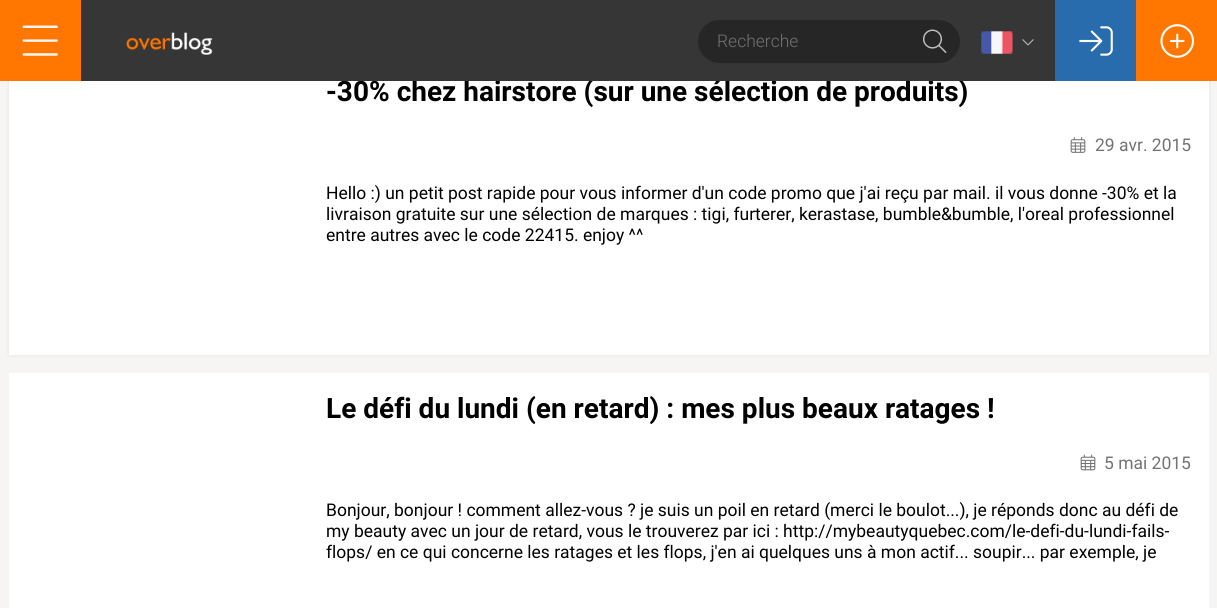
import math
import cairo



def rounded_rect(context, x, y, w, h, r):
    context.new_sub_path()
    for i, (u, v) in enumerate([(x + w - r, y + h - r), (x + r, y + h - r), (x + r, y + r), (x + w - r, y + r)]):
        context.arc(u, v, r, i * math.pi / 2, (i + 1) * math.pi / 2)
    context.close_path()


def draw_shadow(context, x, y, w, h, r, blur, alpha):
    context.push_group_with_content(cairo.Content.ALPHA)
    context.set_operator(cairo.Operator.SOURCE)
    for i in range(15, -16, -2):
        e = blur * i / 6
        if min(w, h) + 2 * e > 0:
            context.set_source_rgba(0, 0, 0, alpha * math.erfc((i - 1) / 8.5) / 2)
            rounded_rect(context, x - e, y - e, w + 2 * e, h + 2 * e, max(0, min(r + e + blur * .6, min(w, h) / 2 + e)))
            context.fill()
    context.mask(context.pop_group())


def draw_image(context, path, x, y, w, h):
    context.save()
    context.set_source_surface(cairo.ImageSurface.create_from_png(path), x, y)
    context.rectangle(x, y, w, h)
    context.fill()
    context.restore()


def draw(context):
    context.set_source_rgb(247 / 255, 245 / 255, 243 / 255)
    context.paint()
    context.set_source_rgb(0, 0, 0)
    draw_shadow(context, 9, 55, 1200, 300, 0, 2, 0.07)
    context.set_source_rgb(1, 118 / 255, 0)
    context.rectangle(0, 0, 81, 81)
    context.fill()
    draw_image(context, "images/1.png", 22, 25, 36, 31)
    context.set_source_rgb(40 / 255, 108 / 255, 174 / 255)
    context.rectangle(1055, 0, 81, 81)
    context.fill()
    draw_image(context, "images/6.png", 1079, 26, 34, 30)
    context.set_source_rgb(1, 118 / 255, 0)
    context.rectangle(1136, 0, 81, 81)
    context.fill()
    draw_image(context, "images/7.png", 1160, 24, 34, 34)
    context.set_source_rgb(1, 1, 1)
    context.rectangle(9, 81, 1200, 274)
    context.fill()
    draw_image(context, "images/8.png", 1070, 137, 16, 16)
    context.rectangle(9, 373, 1200, 235)
    context.fill()
    draw_image(context, "images/9.png", 1080, 454, 16, 17)
    context.select_font_face("Roboto", cairo.FontSlant.NORMAL, cairo.FontWeight.BOLD)
    context.set_font_size(28)
    context.set_source_rgb(0, 0, 0)
    context.move_to(326, 101)
    context.show_text("-30% chez hairstore (sur une sélection de produits)")
    context.set_source_rgb(54 / 255, 54 / 255, 54 / 255)
    context.rectangle(81, 0, 974, 81)
    context.fill()
    draw_image(context, "images/5.png", 1022, 39, 12, 7)
    draw_image(context, "images/4.png", 981, 31, 32, 23)
    context.set_source_rgb(38 / 255, 38 / 255, 38 / 255)
    rounded_rect(context, 698, 20, 262, 43, 21.5)
    context.fill()
    draw_image(context, "images/3.png", 923, 29, 24, 24)
    context.select_font_face("Roboto Light")
    context.set_font_size(17.5)
    context.set_source_rgb(115 / 255, 115 / 255, 115 / 255)
    context.move_to(717, 47)
    context.show_text("Recherche")
    draw_image(context, "images/2.png", 126, 32, 87, 23)
    context.select_font_face("Roboto")
    context.move_to(1095, 151)
    context.show_text("29 avr. 2015")
    context.set_source_rgb(0, 0, 0)
    context.move_to(326, 199)
    context.show_text("Hello :) un petit post rapide pour vous informer d'un code promo que j'ai reçu par mail. il vous donne -30% et la")
    context.move_to(326, 220)
    context.show_text("livraison gratuite sur une sélection de marques : tigi, furterer, kerastase, bumble&bumble, l'oreal professionnel")
    context.move_to(326, 241)
    context.show_text("entre autres avec le code 22415. enjoy ^^")
    context.select_font_face("Roboto", cairo.FontSlant.NORMAL, cairo.FontWeight.BOLD)
    context.set_font_size(28)
    context.move_to(326, 418)
    context.show_text("Le défi du lundi (en retard) : mes plus beaux ratages !")
    context.select_font_face("Roboto")
    context.set_font_size(17.5)
    context.set_source_rgb(115 / 255, 115 / 255, 115 / 255)
    context.move_to(1104, 469)
    context.show_text("5 mai 2015")
    context.set_source_rgb(0, 0, 0)
    context.move_to(326, 516)
    context.show_text("Bonjour, bonjour ! comment allez-vous ? je suis un poil en retard (merci le boulot...), je réponds donc au défi de")
    context.move_to(326, 537)
    context.show_text("my beauty avec un jour de retard, vous le trouverez par ici : http://mybeautyquebec.com/le-defi-du-lundi-fails-")
    context.move_to(326, 558)
    context.show_text("flops/ en ce qui concerne les ratages et les flops, j'en ai quelques uns à mon actif... soupir... par exemple, je")


surface = cairo.ImageSurface(cairo.Format.RGB24, 1217, 608)
context = cairo.Context(surface)
options = cairo.FontOptions()
options.set_hint_metrics(cairo.HintMetrics.OFF)
options.set_hint_style(cairo.HintStyle.NONE)
context.set_font_options(options)
context.set_miter_limit(4)
draw(context)
surface.write_to_png("out.png")
